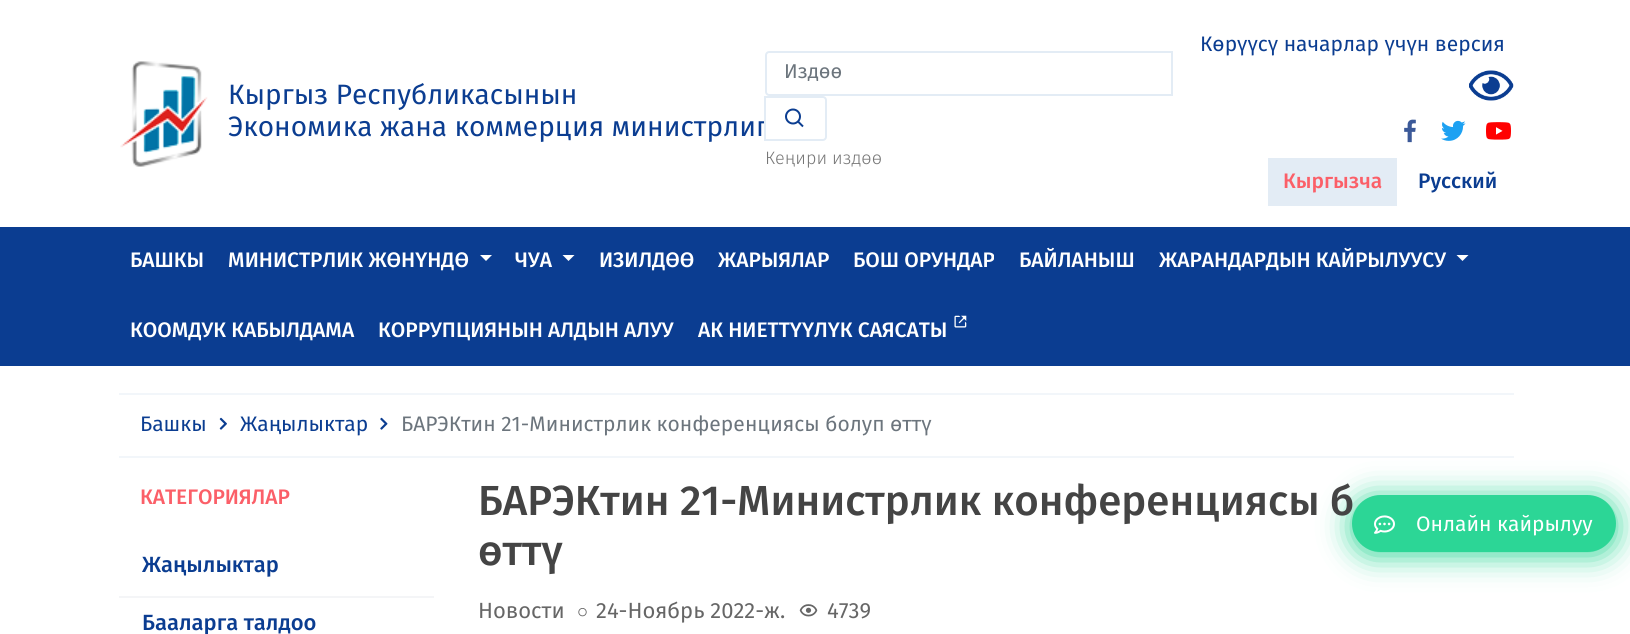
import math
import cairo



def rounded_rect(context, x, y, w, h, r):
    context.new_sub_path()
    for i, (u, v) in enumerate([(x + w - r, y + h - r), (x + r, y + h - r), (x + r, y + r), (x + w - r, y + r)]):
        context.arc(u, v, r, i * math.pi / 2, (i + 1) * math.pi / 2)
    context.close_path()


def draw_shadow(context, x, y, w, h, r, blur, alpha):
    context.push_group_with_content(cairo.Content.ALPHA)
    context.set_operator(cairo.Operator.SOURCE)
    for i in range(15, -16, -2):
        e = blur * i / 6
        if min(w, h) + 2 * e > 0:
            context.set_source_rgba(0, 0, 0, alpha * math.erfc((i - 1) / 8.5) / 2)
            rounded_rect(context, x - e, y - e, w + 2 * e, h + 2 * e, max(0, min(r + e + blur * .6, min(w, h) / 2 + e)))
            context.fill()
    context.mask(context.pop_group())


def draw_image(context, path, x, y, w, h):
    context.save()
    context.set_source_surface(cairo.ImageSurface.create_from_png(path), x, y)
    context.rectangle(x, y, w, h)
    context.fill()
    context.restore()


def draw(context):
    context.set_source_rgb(1, 1, 1)
    context.paint()
    draw_image(context, "images/1.png", 120, 61, 88, 106)
    context.new_path()
    context.move_to(769, 52)
    context.line_to(1172, 52)
    context.line_to(1172, 95)
    context.line_to(769, 95)
    context.curve_to(767.5, 95, 766, 93.5, 766, 92)
    context.line_to(766, 55)
    context.curve_to(766, 53.5, 767.5, 52, 769, 52)
    context.close_path()
    context.set_source_rgb(227 / 255, 236 / 255, 245 / 255)
    context.stroke()
    draw_image(context, "images/3.png", 1469, 70, 45, 31)
    draw_image(context, "images/4.png", 1404, 119, 12, 24)
    draw_image(context, "images/5.png", 1441, 120, 25, 21)
    draw_image(context, "images/6.png", 1486, 122, 25, 18)
    context.rectangle(1268, 158, 129, 48)
    context.fill()
    context.set_source_rgb(11 / 255, 61 / 255, 145 / 255)
    context.rectangle(0, 227, 1630, 139)
    context.fill()
    context.set_source_rgb(1, 1, 1)
    context.new_path()
    context.move_to(480, 255)
    context.line_to(492, 255)
    context.line_to(486, 261)
    context.close_path()
    context.fill()
    context.new_path()
    context.move_to(562.5, 255)
    context.line_to(574.5, 255)
    context.line_to(568.5, 261)
    context.close_path()
    context.fill()
    context.new_path()
    context.move_to(1456.5, 255)
    context.line_to(1468.5, 255)
    context.line_to(1462.5, 261)
    context.close_path()
    context.fill()
    draw_image(context, "images/7.png", 954, 315, 13, 13)
    context.set_source_rgb(242 / 255, 246 / 255, 250 / 255)
    context.rectangle(119, 393, 1395, 2)
    context.fill()
    context.rectangle(119, 456, 1395, 2)
    context.fill()
    draw_image(context, "images/8.png", 219, 417, 8, 13)
    draw_image(context, "images/9.png", 380, 417, 8, 13)
    context.set_source_rgb(244 / 255, 245 / 255, 247 / 255)
    context.rectangle(119, 596, 315, 2)
    context.fill()
    draw_image(context, "images/10.png", 578, 608, 9, 9)
    draw_image(context, "images/11.png", 799, 604, 19, 13)
    context.set_source_rgb(44 / 255, 214 / 255, 150 / 255)
    draw_shadow(context, 1352, 498, 264, 57, 28.5, 15, 1)
    context.select_font_face("Fira Sans")
    context.set_font_size(28)
    context.set_source_rgb(11 / 255, 61 / 255, 145 / 255)
    context.move_to(228, 104)
    context.show_text("Кыргыз Республикасынын")
    context.move_to(228, 136)
    context.show_text("Экономика жана коммерция министрлиг")
    context.set_font_size(20)
    context.set_source_rgb(108 / 255, 117 / 255, 125 / 255)
    context.move_to(784, 78)
    context.show_text("Издөө")
    context.set_source_rgb(1, 1, 1)
    context.new_path()
    context.move_to(765, 97)
    context.line_to(823, 97)
    context.curve_to(824.5, 97, 826, 98.5, 826, 100)
    context.line_to(826, 137)
    context.curve_to(826, 138.5, 824.5, 140, 823, 140)
    context.line_to(765, 140)
    context.close_path()
    context.fill_preserve()
    context.set_source_rgb(227 / 255, 236 / 255, 245 / 255)
    context.stroke()
    draw_image(context, "images/2.png", 785, 108, 19, 20)
    context.select_font_face("Fira Sans Light")
    context.set_font_size(18)
    context.set_source_rgb(119 / 255, 119 / 255, 119 / 255)
    context.move_to(765, 164)
    context.show_text("Кеңири издөө")
    context.select_font_face("Fira Sans")
    context.set_font_size(21)
    context.set_source_rgb(11 / 255, 61 / 255, 145 / 255)
    context.move_to(1200, 51)
    context.show_text("Көрүүсү начарлар үчүн версия")
    context.select_font_face("Fira Sans Medium")
    context.set_source_rgb(251 / 255, 95 / 255, 104 / 255)
    context.move_to(1283, 188)
    context.show_text("Кыргызча")
    context.set_source_rgb(11 / 255, 61 / 255, 145 / 255)
    context.move_to(1418, 188)
    context.show_text("Русский")
    context.set_source_rgb(1, 1, 1)
    context.move_to(130, 267)
    context.show_text("БАШКЫ")
    context.move_to(228, 267)
    context.show_text("МИНИСТРЛИК ЖӨНҮНДӨ")
    context.move_to(515, 267)
    context.show_text("ЧУА")
    context.move_to(599, 267)
    context.show_text("ИЗИЛДӨӨ")
    context.move_to(718, 267)
    context.show_text("ЖАРЫЯЛАР")
    context.move_to(853, 267)
    context.show_text("БОШ ОРУНДАР")
    context.move_to(1019, 267)
    context.show_text("БАЙЛАНЫШ")
    context.move_to(1159, 267)
    context.show_text("ЖАРАНДАРДЫН КАЙРЫЛУУСУ")
    context.move_to(130, 337)
    context.show_text("КООМДУК КАБЫЛДАМА")
    context.move_to(378, 337)
    context.show_text("КОРРУПЦИЯНЫН АЛДЫН АЛУУ")
    context.move_to(698, 337)
    context.show_text("АК НИЕТТҮҮЛҮК САЯСАТЫ")
    context.select_font_face("Fira Sans")
    context.set_source_rgb(11 / 255, 61 / 255, 145 / 255)
    context.move_to(140, 431)
    context.show_text("Башкы")
    context.move_to(240, 431)
    context.show_text("Жаңылыктар")
    context.set_source_rgb(108 / 255, 117 / 255, 125 / 255)
    context.move_to(401, 431)
    context.show_text("БАРЭКтин 21-Министрлик конференциясы болуп өттү")
    context.select_font_face("Fira Sans Medium")
    context.set_source_rgb(251 / 255, 95 / 255, 104 / 255)
    context.move_to(140, 504)
    context.show_text("КАТЕГОРИЯЛАР")
    context.set_font_size(22)
    context.set_source_rgb(11 / 255, 61 / 255, 145 / 255)
    context.move_to(142, 572)
    context.show_text("Жаңылыктар")
    context.move_to(142, 630)
    context.show_text("Бааларга талдоо")
    context.set_font_size(42)
    context.set_source_rgb(68 / 255, 68 / 255, 68 / 255)
    context.move_to(478, 515)
    context.show_text("БАРЭКтин 21-Министрлик конференциясы б")
    context.move_to(478, 565)
    context.show_text("өттү")
    context.select_font_face("Fira Sans")
    context.set_font_size(22)
    context.set_source_rgb(102 / 255, 102 / 255, 102 / 255)
    context.move_to(478, 618)
    context.show_text("Новости")
    context.move_to(596, 618)
    context.show_text("24-Ноябрь 2022-ж.")
    context.move_to(827, 618)
    context.show_text("4739")
    context.set_source_rgb(44 / 255, 214 / 255, 150 / 255)
    rounded_rect(context, 1352, 495, 264, 57, 28.5)
    context.fill()
    draw_image(context, "images/12.png", 1374, 515, 21, 19)
    context.set_font_size(21)
    context.set_source_rgb(1, 1, 1)
    context.move_to(1416, 531)
    context.show_text("Онлайн кайрылуу")


surface = cairo.ImageSurface(cairo.Format.RGB24, 1630, 634)
context = cairo.Context(surface)
options = cairo.FontOptions()
options.set_hint_metrics(cairo.HintMetrics.OFF)
options.set_hint_style(cairo.HintStyle.NONE)
context.set_font_options(options)
context.set_miter_limit(4)
draw(context)
surface.write_to_png("out.png")
